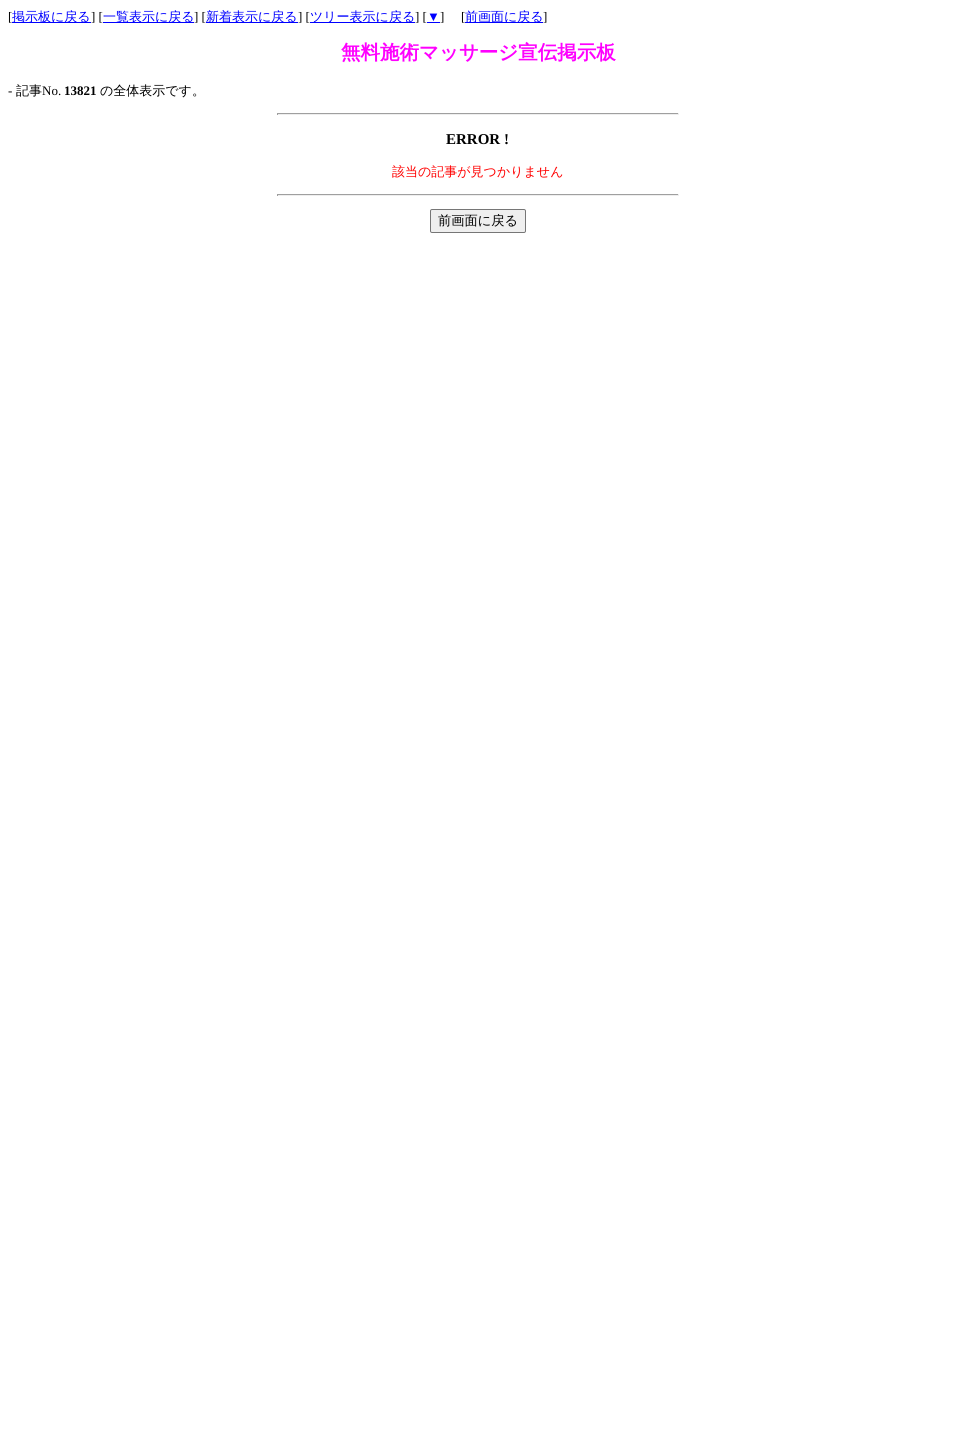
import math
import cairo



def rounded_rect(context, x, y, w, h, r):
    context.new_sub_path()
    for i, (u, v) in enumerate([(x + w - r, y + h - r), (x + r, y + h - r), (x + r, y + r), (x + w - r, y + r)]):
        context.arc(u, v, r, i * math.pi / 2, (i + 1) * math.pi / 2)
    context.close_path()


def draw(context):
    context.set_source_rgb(1, 1, 1)
    context.paint()
    context.set_source_rgb(0, 0, 1)
    context.rectangle(12, 22, 79, 1)
    context.fill()
    context.rectangle(103, 22, 91, 1)
    context.fill()
    context.rectangle(206, 22, 92, 1)
    context.fill()
    context.rectangle(310, 22, 105, 1)
    context.fill()
    context.rectangle(427, 22, 13, 1)
    context.fill()
    context.rectangle(465, 22, 78, 1)
    context.fill()
    context.set_source_rgb(159 / 255, 159 / 255, 159 / 255)
    context.rectangle(277, 113, 402, 1)
    context.fill()
    context.set_source_rgb(238 / 255, 238 / 255, 238 / 255)
    context.rectangle(678, 113, 1, 2)
    context.fill()
    context.rectangle(277, 114, 402, 1)
    context.fill()
    context.set_source_rgb(159 / 255, 159 / 255, 159 / 255)
    context.rectangle(277, 113, 1, 2)
    context.fill()
    context.rectangle(277, 194, 402, 1)
    context.fill()
    context.set_source_rgb(238 / 255, 238 / 255, 238 / 255)
    context.rectangle(678, 194, 1, 2)
    context.fill()
    context.rectangle(277, 195, 402, 1)
    context.fill()
    context.set_source_rgb(159 / 255, 159 / 255, 159 / 255)
    context.rectangle(277, 194, 1, 2)
    context.fill()
    context.set_source_rgb(239 / 255, 239 / 255, 239 / 255)
    rounded_rect(context, 430.5, 209.5, 95, 23, 1.5)
    context.fill_preserve()
    context.set_source_rgb(118 / 255, 118 / 255, 118 / 255)
    context.set_line_width(1)
    context.stroke()
    context.select_font_face("Liberation Serif")
    context.set_font_size(13)
    context.set_source_rgb(0, 0, 0)
    context.move_to(8, 21)
    context.show_text("[")
    context.select_font_face("WenQuanYi Zen Hei Medium")
    context.set_source_rgb(0, 0, 1)
    context.move_to(12, 21)
    context.show_text("掲示板に戻る")
    context.select_font_face("Liberation Serif")
    context.set_source_rgb(0, 0, 0)
    context.move_to(91, 21)
    context.show_text("] [")
    context.select_font_face("WenQuanYi Zen Hei Medium")
    context.set_source_rgb(0, 0, 1)
    context.move_to(103, 21)
    context.show_text("一覧表示に戻る")
    context.select_font_face("Liberation Serif")
    context.set_source_rgb(0, 0, 0)
    context.move_to(194, 21)
    context.show_text("] [")
    context.select_font_face("WenQuanYi Zen Hei Medium")
    context.set_source_rgb(0, 0, 1)
    context.move_to(206, 21)
    context.show_text("新着表示に戻る")
    context.select_font_face("Liberation Serif")
    context.set_source_rgb(0, 0, 0)
    context.move_to(298, 21)
    context.show_text("] [")
    context.select_font_face("WenQuanYi Zen Hei Medium")
    context.set_source_rgb(0, 0, 1)
    context.move_to(310, 21)
    context.show_text("ツリー表示に戻る")
    context.select_font_face("Liberation Serif")
    context.set_source_rgb(0, 0, 0)
    context.move_to(415, 21)
    context.show_text("] [")
    context.set_source_rgb(0, 0, 1)
    context.move_to(427, 21)
    context.show_text("▼")
    context.set_source_rgb(0, 0, 0)
    context.move_to(440, 21)
    context.show_text("]")
    context.move_to(461, 21)
    context.show_text("[")
    context.select_font_face("WenQuanYi Zen Hei Medium")
    context.set_source_rgb(0, 0, 1)
    context.move_to(465, 21)
    context.show_text("前画面に戻る")
    context.select_font_face("Liberation Serif")
    context.set_source_rgb(0, 0, 0)
    context.move_to(543, 21)
    context.show_text("]")
    context.select_font_face("WenQuanYi Zen Hei", cairo.FontSlant.NORMAL, cairo.FontWeight.BOLD)
    context.set_font_size(19.5)
    context.set_source_rgb(1, 0, 1)
    context.move_to(341, 59)
    context.show_text("無料施術マッサージ宣伝掲示板")
    context.select_font_face("Liberation Serif")
    context.set_font_size(13)
    context.set_source_rgb(0, 0, 0)
    context.move_to(8, 95)
    context.show_text("-")
    context.select_font_face("WenQuanYi Zen Hei Medium")
    context.move_to(16, 95)
    context.show_text("記事")
    context.select_font_face("Liberation Serif")
    context.move_to(42, 95)
    context.show_text("No.")
    context.select_font_face("Liberation Serif", cairo.FontSlant.NORMAL, cairo.FontWeight.BOLD)
    context.move_to(64, 95)
    context.show_text("13821")
    context.select_font_face("WenQuanYi Zen Hei Medium")
    context.move_to(100, 95)
    context.show_text("の全体表示です。")
    context.select_font_face("Liberation Serif", cairo.FontSlant.NORMAL, cairo.FontWeight.BOLD)
    context.set_font_size(15)
    context.move_to(446, 144)
    context.show_text("ERROR !")
    context.select_font_face("WenQuanYi Zen Hei Medium")
    context.set_font_size(13)
    context.set_source_rgb(1, 0, 0)
    context.move_to(392, 176)
    context.show_text("該当の記事が見つかりません")
    context.set_font_size(13.25)
    context.set_source_rgb(0, 0, 0)
    context.move_to(438, 225)
    context.show_text("前画面に戻る")


surface = cairo.ImageSurface(cairo.Format.RGB24, 956, 1440)
context = cairo.Context(surface)
options = cairo.FontOptions()
options.set_hint_metrics(cairo.HintMetrics.OFF)
options.set_hint_style(cairo.HintStyle.NONE)
context.set_font_options(options)
context.set_miter_limit(4)
draw(context)
surface.write_to_png("out.png")
